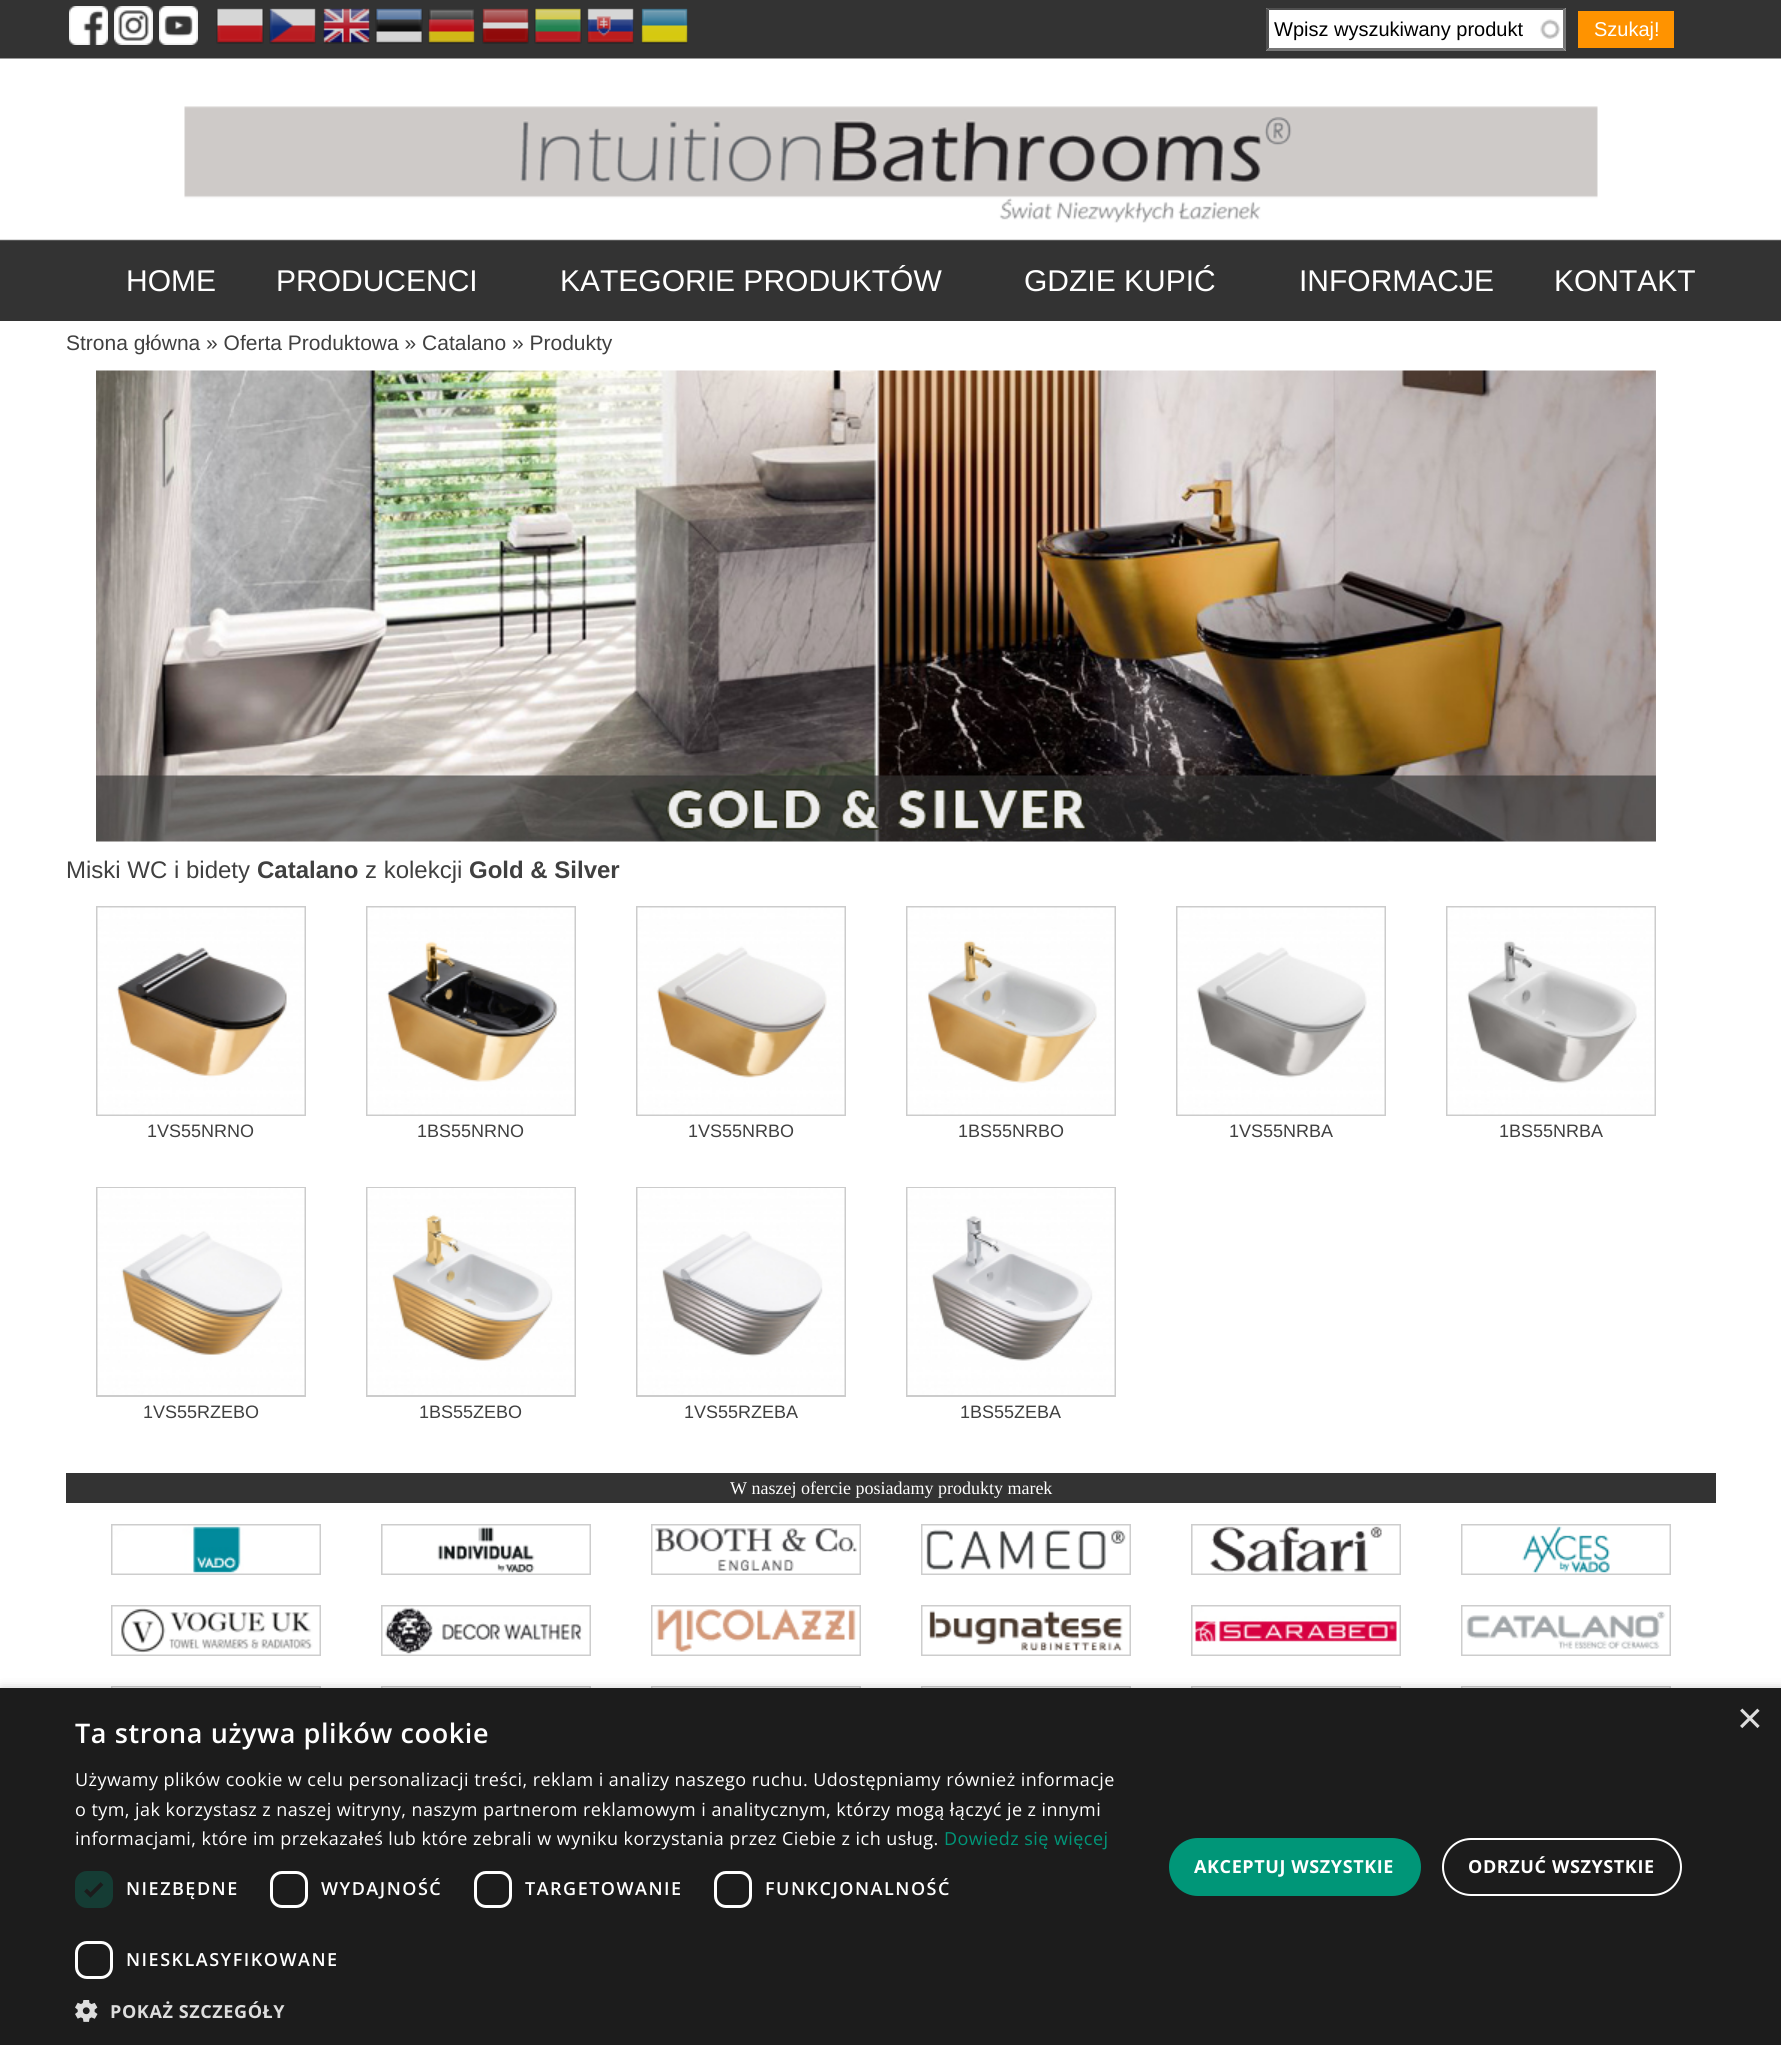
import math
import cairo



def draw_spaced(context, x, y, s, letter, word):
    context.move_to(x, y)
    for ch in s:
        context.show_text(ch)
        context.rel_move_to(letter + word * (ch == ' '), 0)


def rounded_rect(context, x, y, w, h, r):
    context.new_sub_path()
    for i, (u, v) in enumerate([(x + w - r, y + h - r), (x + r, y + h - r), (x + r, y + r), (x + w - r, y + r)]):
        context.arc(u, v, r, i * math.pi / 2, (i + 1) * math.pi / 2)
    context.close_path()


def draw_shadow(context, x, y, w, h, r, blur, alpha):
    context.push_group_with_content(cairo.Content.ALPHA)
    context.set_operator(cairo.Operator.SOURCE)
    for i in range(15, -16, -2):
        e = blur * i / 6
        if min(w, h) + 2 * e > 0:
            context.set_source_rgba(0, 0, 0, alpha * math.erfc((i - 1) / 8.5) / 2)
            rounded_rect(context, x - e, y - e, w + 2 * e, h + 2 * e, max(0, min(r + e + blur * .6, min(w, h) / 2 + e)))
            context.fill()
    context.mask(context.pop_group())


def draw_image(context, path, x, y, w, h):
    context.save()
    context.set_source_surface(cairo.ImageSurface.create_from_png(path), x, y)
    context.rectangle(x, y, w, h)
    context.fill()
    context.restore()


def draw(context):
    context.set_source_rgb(1, 1, 1)
    context.paint()
    draw_image(context, "images/1.png", 0, 0, 1781, 321)
    draw_image(context, "images/2.png", 69, 6, 39, 39)
    draw_image(context, "images/3.png", 114, 6, 39, 39)
    draw_image(context, "images/4.png", 159, 6, 39, 39)
    draw_image(context, "images/5.png", 216, 8, 48, 36)
    draw_image(context, "images/6.png", 269, 8, 47, 36)
    draw_image(context, "images/7.png", 323, 8, 47, 36)
    draw_image(context, "images/8.png", 375, 8, 48, 36)
    draw_image(context, "images/9.png", 428, 9, 47, 35)
    draw_image(context, "images/10.png", 482, 8, 47, 36)
    draw_image(context, "images/11.png", 534, 8, 48, 36)
    draw_image(context, "images/12.png", 587, 8, 47, 36)
    draw_image(context, "images/13.png", 641, 8, 47, 36)
    context.set_source_rgb(1, 1, 1)
    context.rectangle(1266, 8, 300, 43)
    context.fill()
    draw_image(context, "images/14.png", 1540, 19, 21, 20)
    context.set_source_rgb(79 / 255, 79 / 255, 79 / 255)
    context.new_path()
    context.move_to(1266, 8)
    context.line_to(1566, 8)
    context.line_to(1563, 10)
    context.line_to(1269, 10)
    context.close_path()
    context.fill()
    context.set_source_rgb(118 / 255, 118 / 255, 118 / 255)
    context.new_path()
    context.move_to(1566, 8)
    context.line_to(1566, 51)
    context.line_to(1563, 48)
    context.line_to(1563, 10)
    context.close_path()
    context.fill()
    context.new_path()
    context.move_to(1566, 51)
    context.line_to(1266, 51)
    context.line_to(1269, 48)
    context.line_to(1563, 48)
    context.close_path()
    context.fill()
    context.set_source_rgb(79 / 255, 79 / 255, 79 / 255)
    context.new_path()
    context.move_to(1266, 51)
    context.line_to(1266, 8)
    context.line_to(1269, 10)
    context.line_to(1269, 48)
    context.close_path()
    context.fill()
    context.set_source_rgb(1, 147 / 255, 0)
    context.rectangle(1578, 11, 96, 37)
    context.fill()
    draw_image(context, "images/15.png", 184, 106, 1414, 117)
    draw_image(context, "images/16.png", 96, 370, 1560, 472)
    context.rectangle(97, 907, 208, 208)
    context.set_source_rgb(204 / 255, 204 / 255, 204 / 255)
    context.stroke()
    draw_image(context, "images/17.png", 97, 907, 208, 208)
    context.rectangle(367, 907, 208, 208)
    context.stroke()
    draw_image(context, "images/18.png", 367, 907, 208, 208)
    context.rectangle(637, 907, 208, 208)
    context.stroke()
    draw_image(context, "images/19.png", 637, 907, 208, 208)
    context.rectangle(907, 907, 208, 208)
    context.stroke()
    draw_image(context, "images/20.png", 907, 907, 208, 208)
    context.rectangle(1177, 907, 208, 208)
    context.stroke()
    draw_image(context, "images/21.png", 1177, 907, 208, 208)
    context.rectangle(1447, 907, 208, 208)
    context.stroke()
    draw_image(context, "images/22.png", 1447, 907, 208, 208)
    context.rectangle(97, 1188, 208, 208)
    context.stroke()
    draw_image(context, "images/23.png", 97, 1188, 208, 207)
    context.rectangle(367, 1188, 208, 208)
    context.stroke()
    draw_image(context, "images/24.png", 367, 1188, 208, 207)
    context.rectangle(637, 1188, 208, 208)
    context.stroke()
    draw_image(context, "images/25.png", 637, 1188, 208, 207)
    context.rectangle(907, 1188, 208, 208)
    context.stroke()
    draw_image(context, "images/26.png", 907, 1188, 208, 207)
    context.set_source_rgb(51 / 255, 51 / 255, 51 / 255)
    context.rectangle(66, 1473, 1650, 30)
    context.fill()
    draw_image(context, "images/27.png", 111, 1524, 210, 51)
    draw_image(context, "images/28.png", 381, 1524, 210, 51)
    draw_image(context, "images/29.png", 651, 1524, 210, 51)
    draw_image(context, "images/30.png", 921, 1524, 210, 51)
    draw_image(context, "images/31.png", 1191, 1524, 210, 51)
    draw_image(context, "images/32.png", 1461, 1524, 210, 51)
    draw_image(context, "images/33.png", 111, 1605, 210, 51)
    draw_image(context, "images/34.png", 381, 1605, 210, 51)
    draw_image(context, "images/35.png", 651, 1605, 210, 51)
    draw_image(context, "images/36.png", 921, 1605, 210, 51)
    draw_image(context, "images/37.png", 1191, 1605, 210, 51)
    draw_image(context, "images/38.png", 1461, 1605, 210, 51)
    draw_image(context, "images/39.png", 111, 1686, 210, 2)
    draw_image(context, "images/40.png", 381, 1686, 210, 2)
    draw_image(context, "images/41.png", 651, 1686, 210, 2)
    draw_image(context, "images/39.png", 921, 1686, 210, 2)
    draw_image(context, "images/40.png", 1191, 1686, 210, 2)
    draw_image(context, "images/39.png", 1461, 1686, 210, 2)
    context.set_source_rgb(0, 0, 0)
    draw_shadow(context, 2, 1691, 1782, 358, 0, 6, 0.35)
    context.set_source_rgb(28 / 255, 28 / 255, 28 / 255)
    context.rectangle(0, 1688, 1781, 357)
    context.fill()
    context.set_source_rgb(21 / 255, 60 / 255, 52 / 255)
    rounded_rect(context, 75, 1871, 38, 37, 12)
    context.fill()
    context.new_path()
    context.move_to(85.5, 1890)
    context.line_to(90.5, 1895)
    context.line_to(102, 1883.5)
    context.set_source_rgb(28 / 255, 28 / 255, 28 / 255)
    context.set_line_width(3.9)
    context.stroke()
    rounded_rect(context, 271.5, 1872.5, 35, 34, 10.5)
    context.set_source_rgb(1, 1, 1)
    context.set_line_width(3)
    context.stroke()
    rounded_rect(context, 475.5, 1872.5, 35, 34, 10.5)
    context.stroke()
    rounded_rect(context, 715.5, 1872.5, 35, 34, 10.5)
    context.stroke()
    rounded_rect(context, 76.5, 1942.5, 35, 35, 10.5)
    context.stroke()
    draw_image(context, "images/42.png", 75, 2000, 23, 22)
    context.set_source_rgb(0, 150 / 255, 120 / 255)
    rounded_rect(context, 1169, 1838, 252, 58, 29)
    context.fill()
    rounded_rect(context, 1443, 1839, 238, 56, 28)
    context.set_source_rgb(1, 1, 1)
    context.set_line_width(2)
    context.stroke()
    context.select_font_face("Liberation Sans")
    context.set_font_size(20)
    context.set_source_rgb(0, 0, 0)
    context.move_to(1274, 36)
    context.show_text("Wpisz wyszukiwany produkt")
    context.set_source_rgb(1, 1, 1)
    context.move_to(1594, 36)
    context.show_text("Szukaj!")
    context.set_font_size(30)
    context.move_to(126, 291)
    context.show_text("HOME")
    context.move_to(276, 291)
    context.show_text("PRODUCENCI")
    context.move_to(560, 291)
    context.show_text("KATEGORIE PRODUKTÓW")
    context.move_to(1024, 291)
    context.show_text("GDZIE KUPIĆ")
    context.move_to(1299, 291)
    context.show_text("INFORMACJE")
    context.move_to(1554, 291)
    context.show_text("KONTAKT")
    context.set_font_size(21)
    context.set_source_rgb(64 / 255, 64 / 255, 64 / 255)
    context.move_to(66, 350)
    context.show_text("Strona główna » Oferta Produktowa » Catalano » Produkty")
    context.set_font_size(24)
    context.move_to(66, 878)
    context.show_text("Miski WC i bidety")
    context.select_font_face("Liberation Sans", cairo.FontSlant.NORMAL, cairo.FontWeight.BOLD)
    context.move_to(257, 878)
    context.show_text("Catalano")
    context.select_font_face("Liberation Sans")
    context.move_to(365, 878)
    context.show_text("z kolekcji")
    context.select_font_face("Liberation Sans", cairo.FontSlant.NORMAL, cairo.FontWeight.BOLD)
    context.move_to(469, 878)
    context.show_text("Gold & Silver")
    context.select_font_face("Liberation Sans")
    context.set_font_size(18)
    context.move_to(147, 1137)
    context.show_text("1VS55NRNO")
    context.move_to(417, 1137)
    context.show_text("1BS55NRNO")
    context.move_to(688, 1137)
    context.show_text("1VS55NRBO")
    context.move_to(958, 1137)
    context.show_text("1BS55NRBO")
    context.move_to(1229, 1137)
    context.show_text("1VS55NRBA")
    context.move_to(1499, 1137)
    context.show_text("1BS55NRBA")
    context.move_to(143, 1418)
    context.show_text("1VS55RZEBO")
    context.move_to(419, 1418)
    context.show_text("1BS55ZEBO")
    context.move_to(684, 1418)
    context.show_text("1VS55RZEBA")
    context.move_to(960, 1418)
    context.show_text("1BS55ZEBA")
    context.select_font_face("Liberation Serif")
    context.set_source_rgb(1, 1, 1)
    context.move_to(730, 1494)
    context.show_text("W naszej ofercie posiadamy produkty marek")
    context.select_font_face("Liberation Sans")
    context.set_font_size(44)
    context.set_source_rgb(221 / 255, 221 / 255, 221 / 255)
    context.move_to(1737, 1733)
    context.show_text("×")
    context.select_font_face("Open Sans SemiBold")
    context.set_font_size(27)
    context.set_source_rgb(1, 1, 1)
    draw_spaced(context, 75, 1743, "Ta strona używa plików cookie", 0.6, 0)
    context.select_font_face("Open Sans")
    context.set_font_size(18)
    draw_spaced(context, 75, 1786, "Używamy plików cookie w celu personalizacji treści, reklam i analizy naszego ruchu. Udostępniamy również informacje", 0.45, 0)
    draw_spaced(context, 75, 1816, "o tym, jak korzystasz z naszej witryny, naszym partnerom reklamowym i analitycznym, którzy mogą łączyć je z innymi", 0.45, 0)
    draw_spaced(context, 75, 1845, "informacjami, które im przekazałeś lub które zebrali w wyniku korzystania przez Ciebie z ich usług.", 0.45, 0)
    context.set_source_rgb(0, 150 / 255, 120 / 255)
    draw_spaced(context, 944, 1845, "Dowiedz się więcej", 0.45, 0)
    context.select_font_face("Open Sans SemiBold")
    context.set_source_rgb(1, 1, 1)
    draw_spaced(context, 126, 1895, "NIEZBĘDNE", 1.5, 0)
    draw_spaced(context, 321, 1895, "WYDAJNOŚĆ", 1.5, 0)
    draw_spaced(context, 525, 1895, "TARGETOWANIE", 1.5, 0)
    draw_spaced(context, 765, 1895, "FUNKCJONALNOŚĆ", 1.5, 0)
    draw_spaced(context, 126, 1966, "NIESKLASYFIKOWANE", 1.5, 0)
    context.select_font_face("Open Sans", cairo.FontSlant.NORMAL, cairo.FontWeight.BOLD)
    context.set_source_rgb(221 / 255, 221 / 255, 221 / 255)
    draw_spaced(context, 110, 2018, "POKAŻ SZCZEGÓŁY", 0.6, 0)
    context.set_source_rgb(1, 1, 1)
    draw_spaced(context, 1194, 1873, "AKCEPTUJ WSZYSTKIE", 0.6, 0)
    draw_spaced(context, 1468, 1873, "ODRZUĆ WSZYSTKIE", 0.6, 0)


surface = cairo.ImageSurface(cairo.Format.RGB24, 1781, 2045)
context = cairo.Context(surface)
options = cairo.FontOptions()
options.set_hint_metrics(cairo.HintMetrics.OFF)
options.set_hint_style(cairo.HintStyle.NONE)
context.set_font_options(options)
context.set_miter_limit(4)
draw(context)
surface.write_to_png("out.png")
